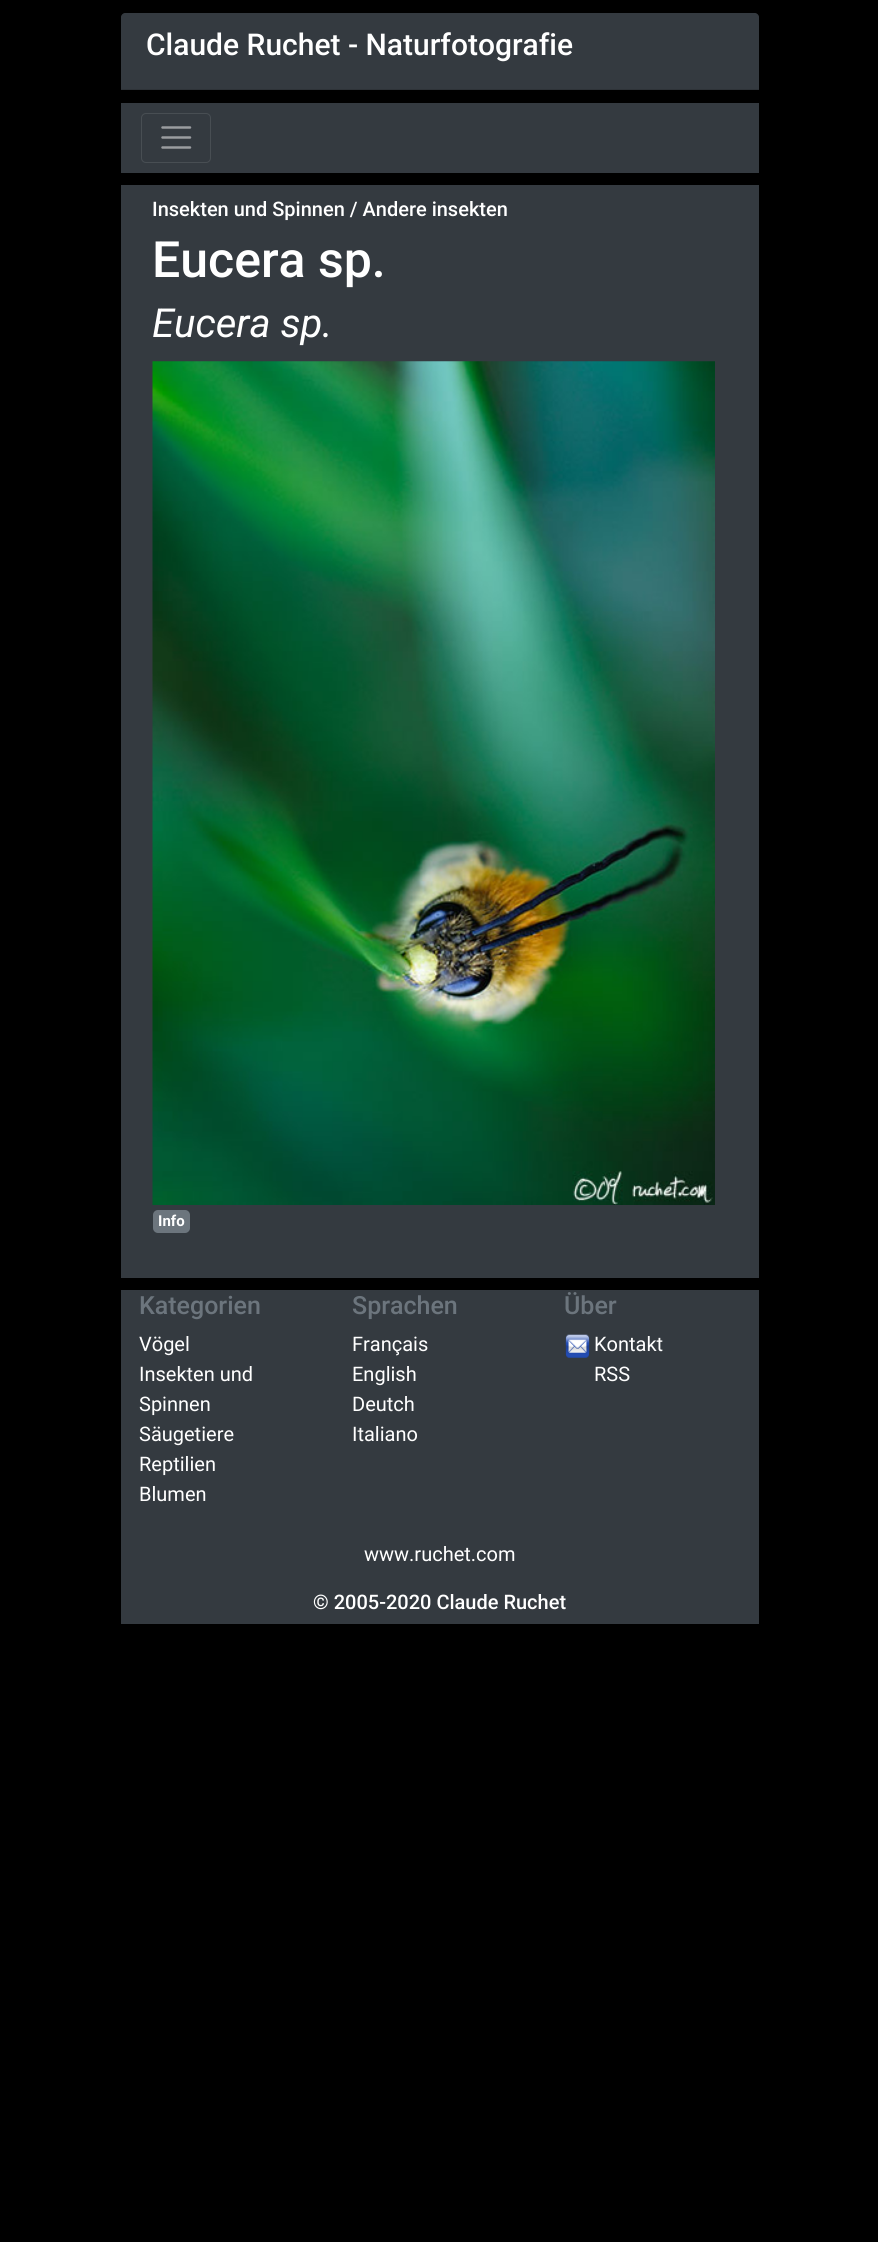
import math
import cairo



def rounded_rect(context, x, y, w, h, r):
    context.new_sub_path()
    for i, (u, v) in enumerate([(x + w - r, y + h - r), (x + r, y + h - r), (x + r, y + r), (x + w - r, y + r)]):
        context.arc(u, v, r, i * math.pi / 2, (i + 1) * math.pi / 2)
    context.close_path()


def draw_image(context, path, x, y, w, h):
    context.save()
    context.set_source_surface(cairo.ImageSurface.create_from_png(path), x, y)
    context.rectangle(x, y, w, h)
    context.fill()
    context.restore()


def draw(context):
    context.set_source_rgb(0, 0, 0)
    context.paint()
    context.set_source_rgb(52 / 255, 58 / 255, 64 / 255)
    context.new_path()
    context.move_to(125, 13)
    context.line_to(755, 13)
    context.curve_to(757, 13, 759, 15, 759, 17)
    context.line_to(759, 90)
    context.line_to(121, 90)
    context.line_to(121, 17)
    context.curve_to(121, 15, 123, 13, 125, 13)
    context.close_path()
    context.fill()
    context.set_source_rgb(46 / 255, 51 / 255, 56 / 255)
    context.rectangle(121, 89, 638, 1)
    context.fill()
    context.set_source_rgb(52 / 255, 58 / 255, 64 / 255)
    context.rectangle(121, 103, 638, 70)
    context.fill()
    rounded_rect(context, 141.5, 113.5, 69, 49, 4.5)
    context.set_source_rgb(72 / 255, 78 / 255, 83 / 255)
    context.set_line_width(1)
    context.stroke()
    context.new_path()
    context.move_to(162.5, 127.5)
    context.line_to(190, 127.5)
    context.move_to(162.5, 137.5)
    context.line_to(190, 137.5)
    context.move_to(162.5, 147.5)
    context.line_to(190, 147.5)
    context.set_source_rgb(154 / 255, 157 / 255, 160 / 255)
    context.set_line_width(2.5)
    context.set_line_cap(cairo.LineCap.ROUND)
    context.stroke()
    context.set_source_rgb(52 / 255, 58 / 255, 64 / 255)
    context.rectangle(121, 185, 638, 1093)
    context.fill()
    draw_image(context, "images/1.png", 152, 361, 563, 844)
    context.set_source_rgb(108 / 255, 117 / 255, 125 / 255)
    rounded_rect(context, 153, 1210, 37, 23, 5)
    context.fill()
    context.set_source_rgb(52 / 255, 58 / 255, 64 / 255)
    context.rectangle(121, 1290, 638, 334)
    context.fill()
    draw_image(context, "images/2.png", 565, 1334, 25, 24)
    context.select_font_face("Roboto Medium")
    context.set_font_size(30)
    context.set_source_rgb(1, 1, 1)
    context.move_to(146, 55)
    context.show_text("Claude Ruchet - Naturfotografie")
    context.set_font_size(20)
    context.move_to(152, 216)
    context.show_text("Insekten und Spinnen / Andere insekten")
    context.set_font_size(50)
    context.move_to(152, 277)
    context.show_text("Eucera sp.")
    context.select_font_face("Roboto", cairo.FontSlant.ITALIC)
    context.set_font_size(40)
    context.move_to(152, 337)
    context.show_text("Eucera sp.")
    context.select_font_face("Roboto", cairo.FontSlant.NORMAL, cairo.FontWeight.BOLD)
    context.set_font_size(15)
    context.move_to(158, 1226)
    context.show_text("Info")
    context.select_font_face("Roboto Medium")
    context.set_font_size(25)
    context.set_source_rgb(108 / 255, 117 / 255, 125 / 255)
    context.move_to(139, 1314)
    context.show_text("Kategorien")
    context.select_font_face("Roboto")
    context.set_font_size(20)
    context.set_source_rgb(1, 1, 1)
    context.move_to(139, 1351)
    context.show_text("Vögel")
    context.move_to(139, 1381)
    context.show_text("Insekten und")
    context.move_to(139, 1411)
    context.show_text("Spinnen")
    context.move_to(139, 1441)
    context.show_text("Säugetiere")
    context.move_to(139, 1471)
    context.show_text("Reptilien")
    context.move_to(139, 1501)
    context.show_text("Blumen")
    context.select_font_face("Roboto Medium")
    context.set_font_size(25)
    context.set_source_rgb(108 / 255, 117 / 255, 125 / 255)
    context.move_to(352, 1314)
    context.show_text("Sprachen")
    context.select_font_face("Roboto")
    context.set_font_size(20)
    context.set_source_rgb(1, 1, 1)
    context.move_to(352, 1351)
    context.show_text("Français")
    context.move_to(352, 1381)
    context.show_text("English")
    context.move_to(352, 1411)
    context.show_text("Deutch")
    context.move_to(352, 1441)
    context.show_text("Italiano")
    context.select_font_face("Roboto Medium")
    context.set_font_size(25)
    context.set_source_rgb(108 / 255, 117 / 255, 125 / 255)
    context.move_to(564, 1314)
    context.show_text("Über")
    context.select_font_face("Roboto")
    context.set_font_size(20)
    context.set_source_rgb(1, 1, 1)
    context.move_to(594, 1351)
    context.show_text("Kontakt")
    context.move_to(594, 1381)
    context.show_text("RSS")
    context.move_to(364, 1561)
    context.show_text("www.ruchet.com")
    context.select_font_face("Roboto Medium")
    context.move_to(313, 1609)
    context.show_text("© 2005-2020 Claude Ruchet")


surface = cairo.ImageSurface(cairo.Format.RGB24, 878, 2242)
context = cairo.Context(surface)
options = cairo.FontOptions()
options.set_hint_metrics(cairo.HintMetrics.OFF)
options.set_hint_style(cairo.HintStyle.NONE)
context.set_font_options(options)
context.set_miter_limit(4)
draw(context)
surface.write_to_png("out.png")
